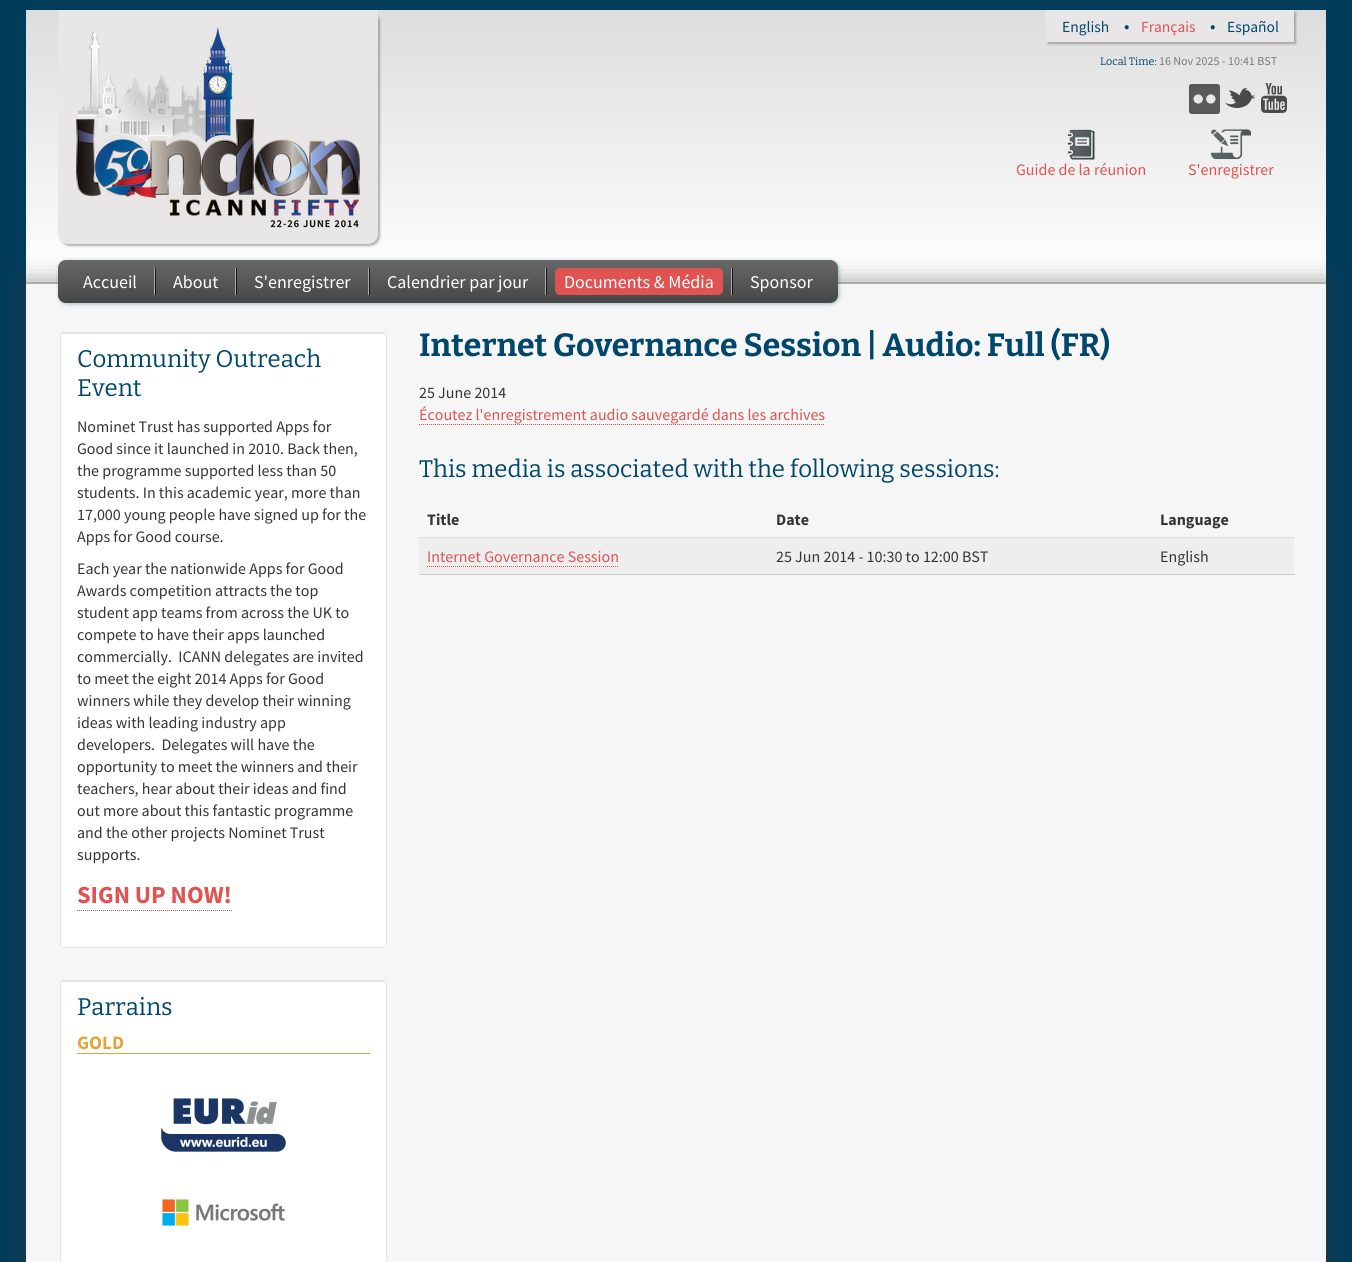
import math
import cairo



def rounded_rect(context, x, y, w, h, r):
    context.new_sub_path()
    for i, (u, v) in enumerate([(x + w - r, y + h - r), (x + r, y + h - r), (x + r, y + r), (x + w - r, y + r)]):
        context.arc(u, v, r, i * math.pi / 2, (i + 1) * math.pi / 2)
    context.close_path()


def draw_shadow(context, x, y, w, h, r, blur, alpha):
    context.push_group_with_content(cairo.Content.ALPHA)
    context.set_operator(cairo.Operator.SOURCE)
    for i in range(15, -16, -2):
        e = blur * i / 6
        if min(w, h) + 2 * e > 0:
            context.set_source_rgba(0, 0, 0, alpha * math.erfc((i - 1) / 8.5) / 2)
            rounded_rect(context, x - e, y - e, w + 2 * e, h + 2 * e, max(0, min(r + e + blur * .6, min(w, h) / 2 + e)))
            context.fill()
    context.mask(context.pop_group())


def draw_image(context, path, x, y, w, h):
    context.save()
    context.set_source_surface(cairo.ImageSurface.create_from_png(path), x, y)
    context.rectangle(x, y, w, h)
    context.fill()
    context.restore()


def draw(context):
    context.set_source_rgb(2 / 255, 60 / 255, 91 / 255)
    context.paint()
    gradient = cairo.LinearGradient(676, 10, 676, 282)
    gradient.add_color_stop_rgba(0, 221 / 255, 221 / 255, 221 / 255, 1)
    gradient.add_color_stop_rgba(1, 1, 1, 1, 1)
    context.set_source(gradient)
    context.rectangle(26, 10, 1300, 272)
    context.fill()
    gradient = cairo.LinearGradient(676, 282, 676, 554)
    gradient.add_color_stop_rgba(0, 221 / 255, 221 / 255, 221 / 255, 1)
    gradient.add_color_stop_rgba(1, 1, 1, 1, 1)
    context.set_source(gradient)
    context.rectangle(26, 282, 1300, 2)
    context.fill()
    context.set_source_rgb(104 / 255, 104 / 255, 104 / 255)
    draw_shadow(context, 60, 12, 320, 234, 10, 1, 0.5)
    context.set_source_rgb(232 / 255, 230 / 255, 230 / 255)
    context.new_path()
    context.move_to(58, 10)
    context.line_to(378, 10)
    context.line_to(378, 234)
    context.curve_to(378, 239.5, 373.5, 244, 368, 244)
    context.line_to(68, 244)
    context.curve_to(62.5, 244, 58, 239.5, 58, 234)
    context.close_path()
    context.fill()
    draw_image(context, "images/1.png", 76, 27, 284, 201)
    context.set_source_rgb(104 / 255, 104 / 255, 104 / 255)
    draw_shadow(context, 1048, 12, 248, 32, 0, 1, 0.5)
    context.set_source_rgb(232 / 255, 230 / 255, 230 / 255)
    context.rectangle(1046, 10, 248, 32)
    context.fill()
    draw_image(context, "images/2.png", 1189, 84, 31, 30)
    draw_image(context, "images/3.png", 1225, 88, 30, 20)
    draw_image(context, "images/4.png", 1261, 83, 26, 30)
    draw_image(context, "images/5.png", 1067, 129, 28, 31)
    draw_image(context, "images/6.png", 1211, 129, 40, 31)
    context.set_source_rgb(53 / 255, 53 / 255, 53 / 255)
    draw_shadow(context, 26, 284, 1300, 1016, 0, 12.5, 0.6)
    context.set_source_rgb(246 / 255, 246 / 255, 246 / 255)
    context.rectangle(26, 284, 1300, 978)
    context.fill()
    context.set_source_rgb(0, 71 / 255, 107 / 255)
    draw_shadow(context, 59, 261, 780, 43, 8, 2, 0.35)
    gradient = cairo.LinearGradient(448, 260, 448, 303)
    gradient.add_color_stop_rgba(0, 104 / 255, 104 / 255, 104 / 255, 1)
    gradient.add_color_stop_rgba(1, 70 / 255, 70 / 255, 70 / 255, 1)
    context.set_source(gradient)
    rounded_rect(context, 58, 260, 780, 43, 8)
    context.fill()
    context.set_source_rgb(172 / 255, 172 / 255, 172 / 255)
    context.rectangle(154, 268, 1, 27)
    context.fill()
    context.rectangle(235, 268, 1, 27)
    context.fill()
    context.set_source_rgb(19 / 255, 19 / 255, 19 / 255)
    context.rectangle(155, 268, 1, 27)
    context.fill()
    context.set_source_rgb(172 / 255, 172 / 255, 172 / 255)
    context.rectangle(368, 268, 1, 27)
    context.fill()
    context.set_source_rgb(19 / 255, 19 / 255, 19 / 255)
    context.rectangle(236, 268, 1, 27)
    context.fill()
    context.set_source_rgb(172 / 255, 172 / 255, 172 / 255)
    context.rectangle(545, 268, 1, 27)
    context.fill()
    context.set_source_rgb(19 / 255, 19 / 255, 19 / 255)
    context.rectangle(369, 268, 1, 27)
    context.fill()
    context.set_source_rgb(172 / 255, 172 / 255, 172 / 255)
    context.rectangle(731, 268, 1, 27)
    context.fill()
    context.set_source_rgb(19 / 255, 19 / 255, 19 / 255)
    context.rectangle(546, 268, 1, 27)
    context.fill()
    context.set_source_rgb(223 / 255, 83 / 255, 83 / 255)
    rounded_rect(context, 555, 268, 168, 27, 5)
    context.fill()
    context.set_source_rgb(19 / 255, 19 / 255, 19 / 255)
    context.rectangle(732, 268, 1, 27)
    context.fill()
    context.set_source_rgb(1, 1, 1)
    rounded_rect(context, 60, 332, 327, 616, 4)
    context.fill()
    context.set_source_rgb(230 / 255, 230 / 255, 230 / 255)
    context.new_path()
    context.move_to(64, 334)
    context.line_to(383, 334)
    context.curve_to(385, 334, 386, 335, 386, 337)
    context.curve_to(386, 335, 385, 333, 383, 333)
    context.line_to(64, 333)
    context.curve_to(62, 333, 61, 335, 61, 337)
    context.curve_to(61, 335, 62, 334, 64, 334)
    context.close_path()
    context.fill()
    rounded_rect(context, 60.5, 332.5, 326, 615, 3.5)
    context.set_source_rgb(227 / 255, 227 / 255, 227 / 255)
    context.set_line_width(1)
    context.stroke()
    context.new_path()
    context.move_to(77, 910.5)
    context.line_to(232, 910.5)
    context.set_source_rgb(223 / 255, 83 / 255, 83 / 255)
    context.set_dash([1, 1])
    context.stroke()
    context.set_source_rgb(1, 1, 1)
    rounded_rect(context, 60, 980, 327, 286, 4)
    context.fill()
    context.set_source_rgb(230 / 255, 230 / 255, 230 / 255)
    context.new_path()
    context.move_to(64, 982)
    context.line_to(383, 982)
    context.curve_to(385, 982, 386, 983, 386, 985)
    context.curve_to(386, 983, 385, 981, 383, 981)
    context.line_to(64, 981)
    context.curve_to(62, 981, 61, 983, 61, 985)
    context.curve_to(61, 983, 62, 982, 64, 982)
    context.close_path()
    context.fill()
    rounded_rect(context, 60.5, 980.5, 326, 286, 3.5)
    context.set_source_rgb(227 / 255, 227 / 255, 227 / 255)
    context.set_dash([])
    context.stroke()
    context.set_source_rgb(226 / 255, 165 / 255, 58 / 255)
    context.rectangle(77, 1053, 293, 1)
    context.fill()
    draw_image(context, "images/7.png", 161, 1098, 125, 54)
    draw_image(context, "images/8.png", 162, 1199, 123, 27)
    context.new_path()
    context.move_to(419, 424.5)
    context.line_to(825, 424.5)
    context.set_source_rgb(223 / 255, 83 / 255, 83 / 255)
    context.set_dash([1, 1])
    context.stroke()
    context.set_source_rgb(238 / 255, 238 / 255, 238 / 255)
    context.rectangle(419, 538, 875, 36)
    context.fill()
    context.set_source_rgb(204 / 255, 204 / 255, 204 / 255)
    context.rectangle(419, 574, 876, 1)
    context.fill()
    context.new_path()
    context.move_to(427, 566.5)
    context.line_to(619, 566.5)
    context.set_source_rgb(223 / 255, 83 / 255, 83 / 255)
    context.stroke()
    context.set_source_rgb(221 / 255, 221 / 255, 221 / 255)
    context.rectangle(419, 537, 876, 1)
    context.fill()
    context.select_font_face("Source Sans Pro")
    context.set_font_size(15.5)
    context.set_source_rgb(0, 71 / 255, 107 / 255)
    context.move_to(1062, 32)
    context.show_text("English")
    context.set_font_size(18)
    context.move_to(1124, 32)
    context.show_text("•")
    context.set_font_size(15.5)
    context.set_source_rgb(223 / 255, 83 / 255, 83 / 255)
    context.move_to(1141, 32)
    context.show_text("Français")
    context.set_font_size(18)
    context.set_source_rgb(0, 71 / 255, 107 / 255)
    context.move_to(1210, 32)
    context.show_text("•")
    context.set_font_size(15.5)
    context.move_to(1227, 32)
    context.show_text("Español")
    context.select_font_face("Bitter")
    context.set_font_size(10.75)
    context.move_to(1100, 65)
    context.show_text("Local Time:")
    context.select_font_face("Source Sans Pro")
    context.set_font_size(12)
    context.set_source_rgb(121 / 255, 121 / 255, 121 / 255)
    context.move_to(1159, 65)
    context.show_text("16 Nov 2025 - 10:41 BST")
    context.set_font_size(16)
    context.set_source_rgb(223 / 255, 83 / 255, 83 / 255)
    context.move_to(1016, 175)
    context.show_text("Guide de la réunion")
    context.move_to(1188, 175)
    context.show_text("S'enregistrer")
    context.set_font_size(18)
    context.set_source_rgb(1, 1, 1)
    context.move_to(83, 288)
    context.show_text("Accueil")
    context.move_to(173, 288)
    context.show_text("About")
    context.move_to(254, 288)
    context.show_text("S'enregistrer")
    context.move_to(387, 288)
    context.show_text("Calendrier par jour")
    context.move_to(564, 288)
    context.show_text("Documents & Média")
    context.move_to(750, 288)
    context.show_text("Sponsor")
    context.select_font_face("Bitter")
    context.set_font_size(24)
    context.set_source_rgb(0, 71 / 255, 107 / 255)
    context.move_to(77, 367)
    context.show_text("Community Outreach")
    context.move_to(77, 396)
    context.show_text("Event")
    context.select_font_face("Source Sans Pro")
    context.set_font_size(16)
    context.set_source_rgb(53 / 255, 53 / 255, 53 / 255)
    context.move_to(77, 432)
    context.show_text("Nominet Trust has supported Apps for")
    context.move_to(77, 454)
    context.show_text("Good since it launched in 2010. Back then,")
    context.move_to(77, 476)
    context.show_text("the programme supported less than 50")
    context.move_to(77, 498)
    context.show_text("students. In this academic year, more than")
    context.move_to(77, 520)
    context.show_text("17,000 young people have signed up for the")
    context.move_to(77, 542)
    context.show_text("Apps for Good course.")
    context.move_to(77, 574)
    context.show_text("Each year the nationwide Apps for Good")
    context.move_to(77, 596)
    context.show_text("Awards competition attracts the top")
    context.move_to(77, 618)
    context.show_text("student app teams from across the UK to")
    context.move_to(77, 640)
    context.show_text("compete to have their apps launched")
    context.move_to(77, 662)
    context.show_text("commercially.  ICANN delegates are invited")
    context.move_to(77, 684)
    context.show_text("to meet the eight 2014 Apps for Good")
    context.move_to(77, 706)
    context.show_text("winners while they develop their winning")
    context.move_to(77, 728)
    context.show_text("ideas with leading industry app")
    context.move_to(77, 750)
    context.show_text("developers.  Delegates will have the")
    context.move_to(77, 772)
    context.show_text("opportunity to meet the winners and their")
    context.move_to(77, 794)
    context.show_text("teachers, hear about their ideas and find")
    context.move_to(77, 816)
    context.show_text("out more about this fantastic programme")
    context.move_to(77, 838)
    context.show_text("and the other projects Nominet Trust")
    context.move_to(77, 860)
    context.show_text("supports.")
    context.select_font_face("Source Sans Pro", cairo.FontSlant.NORMAL, cairo.FontWeight.BOLD)
    context.set_font_size(24.5)
    context.set_source_rgb(223 / 255, 83 / 255, 83 / 255)
    context.move_to(77, 903)
    context.show_text("SIGN UP NOW!")
    context.select_font_face("Bitter")
    context.set_font_size(24)
    context.set_source_rgb(0, 71 / 255, 107 / 255)
    context.move_to(77, 1015)
    context.show_text("Parrains")
    context.select_font_face("Source Sans Pro", cairo.FontSlant.NORMAL, cairo.FontWeight.BOLD)
    context.set_font_size(19)
    context.set_source_rgb(226 / 255, 165 / 255, 58 / 255)
    context.move_to(77, 1049)
    context.show_text("GOLD")
    context.select_font_face("Bitter", cairo.FontSlant.NORMAL, cairo.FontWeight.BOLD)
    context.set_font_size(32)
    context.set_source_rgb(0, 71 / 255, 107 / 255)
    context.move_to(419, 356)
    context.show_text("Internet Governance Session | Audio: Full (FR)")
    context.select_font_face("Source Sans Pro")
    context.set_font_size(16)
    context.set_source_rgb(53 / 255, 53 / 255, 53 / 255)
    context.move_to(419, 398)
    context.show_text("25 June 2014")
    context.set_source_rgb(223 / 255, 83 / 255, 83 / 255)
    context.move_to(419, 420)
    context.show_text("Écoutez l'enregistrement audio sauvegardé dans les archives")
    context.select_font_face("Bitter")
    context.set_font_size(24)
    context.set_source_rgb(0, 71 / 255, 107 / 255)
    context.move_to(419, 477)
    context.show_text("This media is associated with the following sessions:")
    context.select_font_face("Source Sans Pro", cairo.FontSlant.NORMAL, cairo.FontWeight.BOLD)
    context.set_font_size(16)
    context.set_source_rgb(53 / 255, 53 / 255, 53 / 255)
    context.move_to(427, 525)
    context.show_text("Title")
    context.move_to(776, 525)
    context.show_text("Date")
    context.move_to(1160, 525)
    context.show_text("Language")
    context.select_font_face("Source Sans Pro")
    context.set_source_rgb(223 / 255, 83 / 255, 83 / 255)
    context.move_to(427, 562)
    context.show_text("Internet Governance Session")
    context.set_source_rgb(53 / 255, 53 / 255, 53 / 255)
    context.move_to(776, 562)
    context.show_text("25 Jun 2014 - 10:30 to 12:00 BST")
    context.move_to(1160, 562)
    context.show_text("English")


surface = cairo.ImageSurface(cairo.Format.RGB24, 1352, 1262)
context = cairo.Context(surface)
options = cairo.FontOptions()
options.set_hint_metrics(cairo.HintMetrics.OFF)
options.set_hint_style(cairo.HintStyle.NONE)
context.set_font_options(options)
context.set_miter_limit(4)
draw(context)
surface.write_to_png("out.png")
